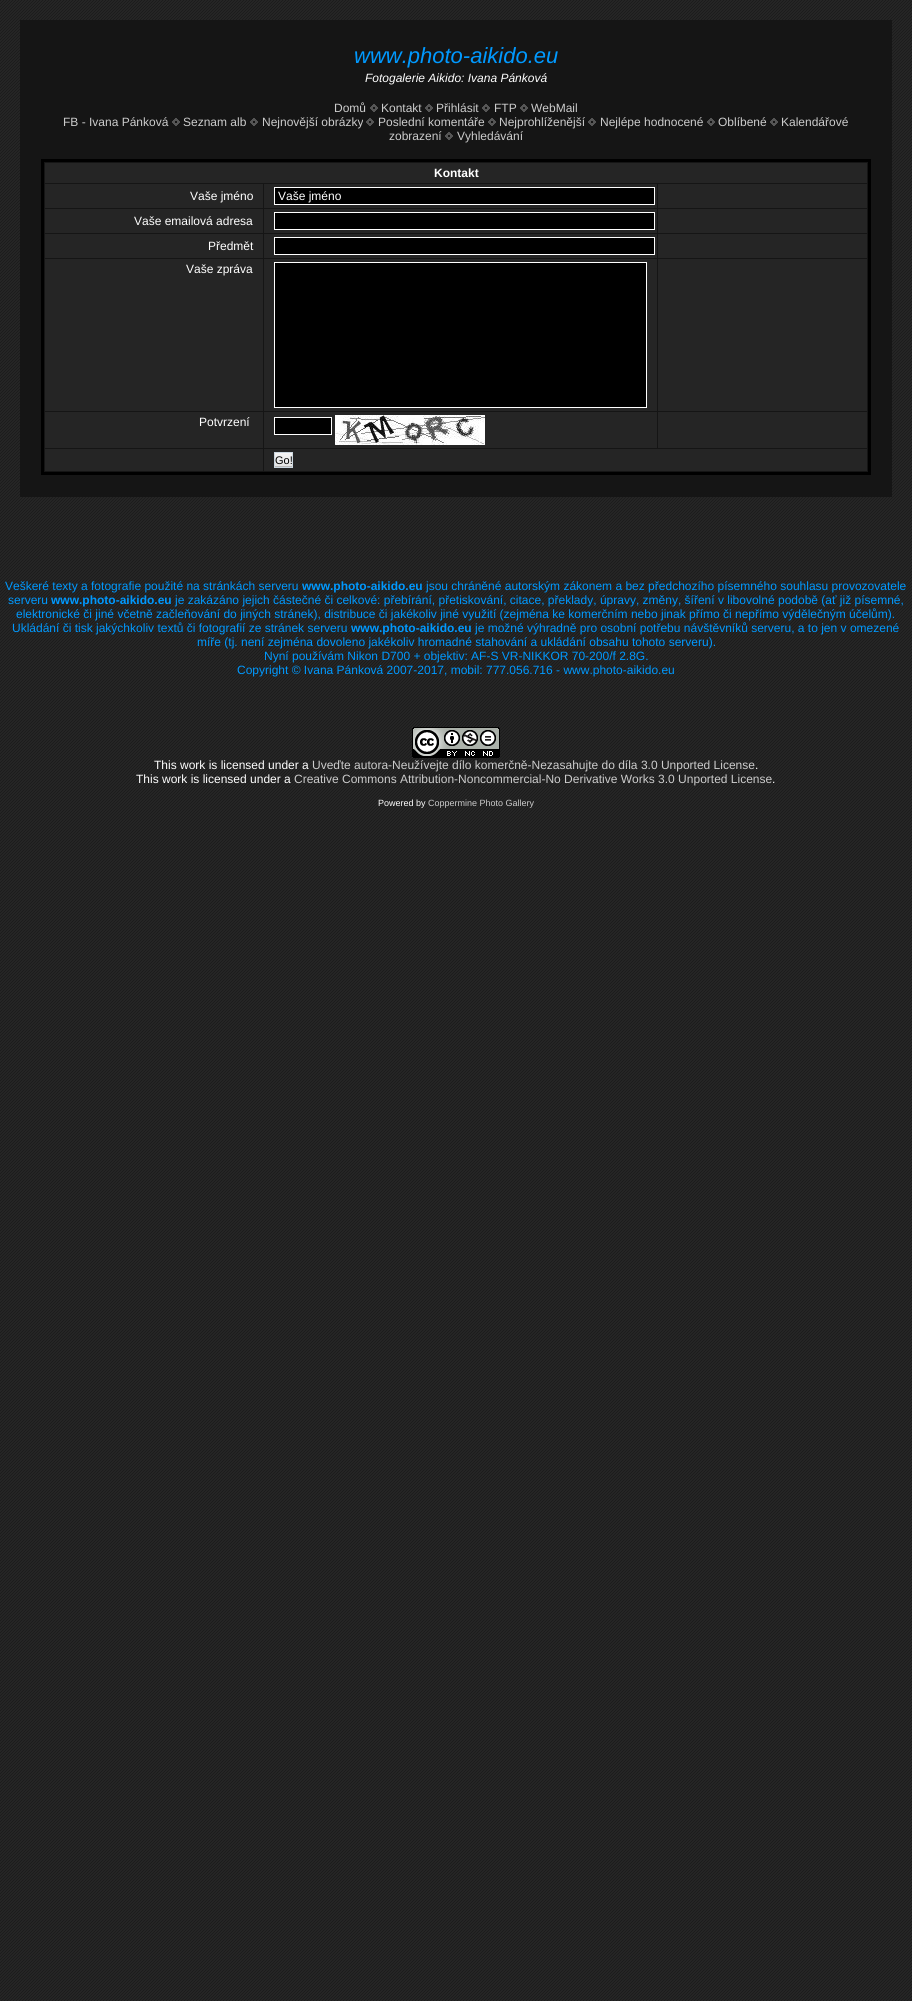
import math
import cairo



def draw_image(context, path, x, y, w, h):
    context.save()
    context.set_source_surface(cairo.ImageSurface.create_from_png(path), x, y)
    context.rectangle(x, y, w, h)
    context.fill()
    context.restore()


def draw(context):
    context.set_source_rgb(1, 1, 1)
    context.paint()
    draw_image(context, "images/1.png", 0, 0, 912, 2001)
    context.set_source_rgb(21 / 255, 21 / 255, 21 / 255)
    context.rectangle(20, 20, 872, 477)
    context.fill()
    draw_image(context, "images/2.png", 370, 104, 8, 8)
    draw_image(context, "images/2.png", 425, 104, 8, 8)
    draw_image(context, "images/2.png", 482, 104, 8, 8)
    draw_image(context, "images/2.png", 520, 104, 8, 8)
    draw_image(context, "images/2.png", 172, 118, 8, 8)
    draw_image(context, "images/2.png", 250, 118, 8, 8)
    draw_image(context, "images/2.png", 366, 118, 8, 8)
    draw_image(context, "images/2.png", 488, 118, 8, 8)
    draw_image(context, "images/2.png", 588, 118, 8, 8)
    draw_image(context, "images/2.png", 707, 118, 8, 8)
    draw_image(context, "images/2.png", 770, 118, 8, 8)
    draw_image(context, "images/2.png", 445, 132, 8, 8)
    context.rectangle(42.5, 160.5, 827, 313)
    context.set_source_rgb(0, 0, 0)
    context.set_line_width(3)
    context.stroke()
    context.set_source_rgb(37 / 255, 37 / 255, 37 / 255)
    context.rectangle(45, 163, 822, 20)
    context.fill()
    context.rectangle(45, 184, 218, 24)
    context.fill()
    context.rectangle(264, 184, 393, 24)
    context.fill()
    context.set_source_rgb(0, 0, 0)
    context.rectangle(274.5, 187.5, 380, 17)
    context.fill_preserve()
    context.set_source_rgb(1, 1, 1)
    context.set_line_width(1)
    context.stroke()
    context.set_source_rgb(37 / 255, 37 / 255, 37 / 255)
    context.rectangle(658, 184, 209, 24)
    context.fill()
    context.rectangle(45, 209, 218, 24)
    context.fill()
    context.rectangle(264, 209, 393, 24)
    context.fill()
    context.set_source_rgb(0, 0, 0)
    context.rectangle(274.5, 212.5, 380, 17)
    context.fill_preserve()
    context.set_source_rgb(1, 1, 1)
    context.stroke()
    context.set_source_rgb(37 / 255, 37 / 255, 37 / 255)
    context.rectangle(658, 209, 209, 24)
    context.fill()
    context.rectangle(45, 234, 218, 24)
    context.fill()
    context.rectangle(264, 234, 393, 24)
    context.fill()
    context.set_source_rgb(0, 0, 0)
    context.rectangle(274.5, 237.5, 380, 17)
    context.fill_preserve()
    context.set_source_rgb(1, 1, 1)
    context.stroke()
    context.set_source_rgb(37 / 255, 37 / 255, 37 / 255)
    context.rectangle(658, 234, 209, 24)
    context.fill()
    context.rectangle(45, 259, 218, 152)
    context.fill()
    context.rectangle(264, 259, 393, 152)
    context.fill()
    context.set_source_rgb(0, 0, 0)
    context.rectangle(274.5, 262.5, 372, 145)
    context.fill_preserve()
    context.set_source_rgb(1, 1, 1)
    context.stroke()
    context.set_source_rgb(37 / 255, 37 / 255, 37 / 255)
    context.rectangle(658, 259, 209, 152)
    context.fill()
    context.rectangle(45, 412, 218, 36)
    context.fill()
    context.rectangle(264, 412, 393, 36)
    context.fill()
    context.set_source_rgb(0, 0, 0)
    context.rectangle(274.5, 417.5, 57, 17)
    context.fill_preserve()
    context.set_source_rgb(1, 1, 1)
    context.stroke()
    draw_image(context, "images/3.png", 335, 415, 150, 30)
    context.set_source_rgb(37 / 255, 37 / 255, 37 / 255)
    context.rectangle(658, 412, 209, 36)
    context.fill()
    context.rectangle(45, 449, 218, 22)
    context.fill()
    context.rectangle(264, 449, 603, 22)
    context.fill()
    draw_image(context, "images/4.png", 275, 453, 17, 14)
    context.rectangle(274.5, 452.5, 18, 15)
    context.set_source_rgb(204 / 255, 215 / 255, 224 / 255)
    context.stroke()
    draw_image(context, "images/5.png", 412, 727, 88, 31)
    context.select_font_face("Liberation Sans", cairo.FontSlant.ITALIC)
    context.set_font_size(22)
    context.set_source_rgb(0, 153 / 255, 1)
    context.move_to(354, 63)
    context.show_text("www.photo-aikido.eu")
    context.set_font_size(12)
    context.set_source_rgb(1, 1, 1)
    context.move_to(365, 82)
    context.show_text("Fotogalerie Aikido: Ivana Pánková")
    context.select_font_face("Liberation Sans")
    context.set_source_rgb(204 / 255, 204 / 255, 204 / 255)
    context.move_to(334, 112)
    context.show_text("Domů")
    context.move_to(381, 112)
    context.show_text("Kontakt")
    context.move_to(436, 112)
    context.show_text("Přihlásit")
    context.move_to(494, 112)
    context.show_text("FTP")
    context.move_to(531, 112)
    context.show_text("WebMail")
    context.move_to(63, 126)
    context.show_text("FB - Ivana Pánková")
    context.move_to(183, 126)
    context.show_text("Seznam alb")
    context.move_to(262, 126)
    context.show_text("Nejnovější obrázky")
    context.move_to(378, 126)
    context.show_text("Poslední komentáře")
    context.move_to(499, 126)
    context.show_text("Nejprohlíženější")
    context.move_to(600, 126)
    context.show_text("Nejlépe hodnocené")
    context.move_to(718, 126)
    context.show_text("Oblíbené")
    context.move_to(781, 126)
    context.show_text("Kalendářové")
    context.move_to(389, 140)
    context.show_text("zobrazení")
    context.move_to(457, 140)
    context.show_text("Vyhledávání")
    context.select_font_face("Liberation Sans", cairo.FontSlant.NORMAL, cairo.FontWeight.BOLD)
    context.set_source_rgb(1, 1, 1)
    context.move_to(434, 177)
    context.show_text("Kontakt")
    context.select_font_face("Liberation Sans")
    context.move_to(190, 200)
    context.show_text("Vaše jméno")
    context.move_to(278, 200)
    context.show_text("Vaše jméno")
    context.move_to(134, 225)
    context.show_text("Vaše emailová adresa")
    context.move_to(208, 250)
    context.show_text("Předmět")
    context.move_to(186, 273)
    context.show_text("Vaše zpráva")
    context.move_to(199, 426)
    context.show_text("Potvrzení")
    context.set_font_size(11)
    context.set_source_rgb(0, 0, 0)
    context.move_to(275, 464)
    context.show_text("Go!")
    context.set_font_size(12)
    context.set_source_rgb(0, 153 / 255, 1)
    context.move_to(5, 590)
    context.show_text("Veškeré texty a fotografie použité na stránkách serveru")
    context.select_font_face("Liberation Sans", cairo.FontSlant.NORMAL, cairo.FontWeight.BOLD)
    context.move_to(302, 590)
    context.show_text("www.photo-aikido.eu")
    context.select_font_face("Liberation Sans")
    context.move_to(426, 590)
    context.show_text("jsou chráněné autorským zákonem a bez předchozího písemného souhlasu provozovatele")
    context.move_to(8, 604)
    context.show_text("serveru")
    context.select_font_face("Liberation Sans", cairo.FontSlant.NORMAL, cairo.FontWeight.BOLD)
    context.move_to(51, 604)
    context.show_text("www.photo-aikido.eu")
    context.select_font_face("Liberation Sans")
    context.move_to(175, 604)
    context.show_text("je zakázáno jejich částečné či celkové: přebírání, přetiskování, citace, překlady, úpravy, změny, šíření v libovolné podobě (ať již písemné,")
    context.move_to(16, 618)
    context.show_text("elektronické či jiné včetně začleňování do jiných stránek), distribuce či jakékoliv jiné využití (zejména ke komerčním nebo jinak přímo či nepřímo výdělečným účelům).")
    context.move_to(12, 632)
    context.show_text("Ukládání či tisk jakýchkoliv textů či fotografií ze stránek serveru")
    context.select_font_face("Liberation Sans", cairo.FontSlant.NORMAL, cairo.FontWeight.BOLD)
    context.move_to(351, 632)
    context.show_text("www.photo-aikido.eu")
    context.select_font_face("Liberation Sans")
    context.move_to(475, 632)
    context.show_text("je možné výhradně pro osobní potřebu návštěvníků serveru, a to jen v omezené")
    context.move_to(197, 646)
    context.show_text("míře (tj. není zejména dovoleno jakékoliv hromadné stahování a ukládání obsahu tohoto serveru).")
    context.move_to(264, 660)
    context.show_text("Nyní používám Nikon D700 + objektiv: AF-S VR-NIKKOR 70-200/f 2.8G.")
    context.move_to(237, 674)
    context.show_text("Copyright © Ivana Pánková 2007-2017, mobil: 777.056.716 - www.photo-aikido.eu")
    context.set_source_rgb(1, 1, 1)
    context.move_to(154, 769)
    context.show_text("This work is licensed under a")
    context.set_source_rgb(204 / 255, 204 / 255, 204 / 255)
    context.move_to(312, 769)
    context.show_text("Uveďte autora-Neužívejte dílo komerčně-Nezasahujte do díla 3.0 Unported License")
    context.set_source_rgb(1, 1, 1)
    context.move_to(755, 769)
    context.show_text(".")
    context.move_to(136, 783)
    context.show_text("This work is licensed under a")
    context.set_source_rgb(204 / 255, 204 / 255, 204 / 255)
    context.move_to(294, 783)
    context.show_text("Creative Commons Attribution-Noncommercial-No Derivative Works 3.0 Unported License")
    context.set_source_rgb(1, 1, 1)
    context.move_to(772, 783)
    context.show_text(".")
    context.set_font_size(9)
    context.move_to(378, 806)
    context.show_text("Powered by")
    context.set_source_rgb(204 / 255, 204 / 255, 204 / 255)
    context.move_to(428, 806)
    context.show_text("Coppermine Photo Gallery")


surface = cairo.ImageSurface(cairo.Format.RGB24, 912, 2001)
context = cairo.Context(surface)
options = cairo.FontOptions()
options.set_hint_metrics(cairo.HintMetrics.OFF)
options.set_hint_style(cairo.HintStyle.NONE)
context.set_font_options(options)
context.set_miter_limit(4)
draw(context)
surface.write_to_png("out.png")
